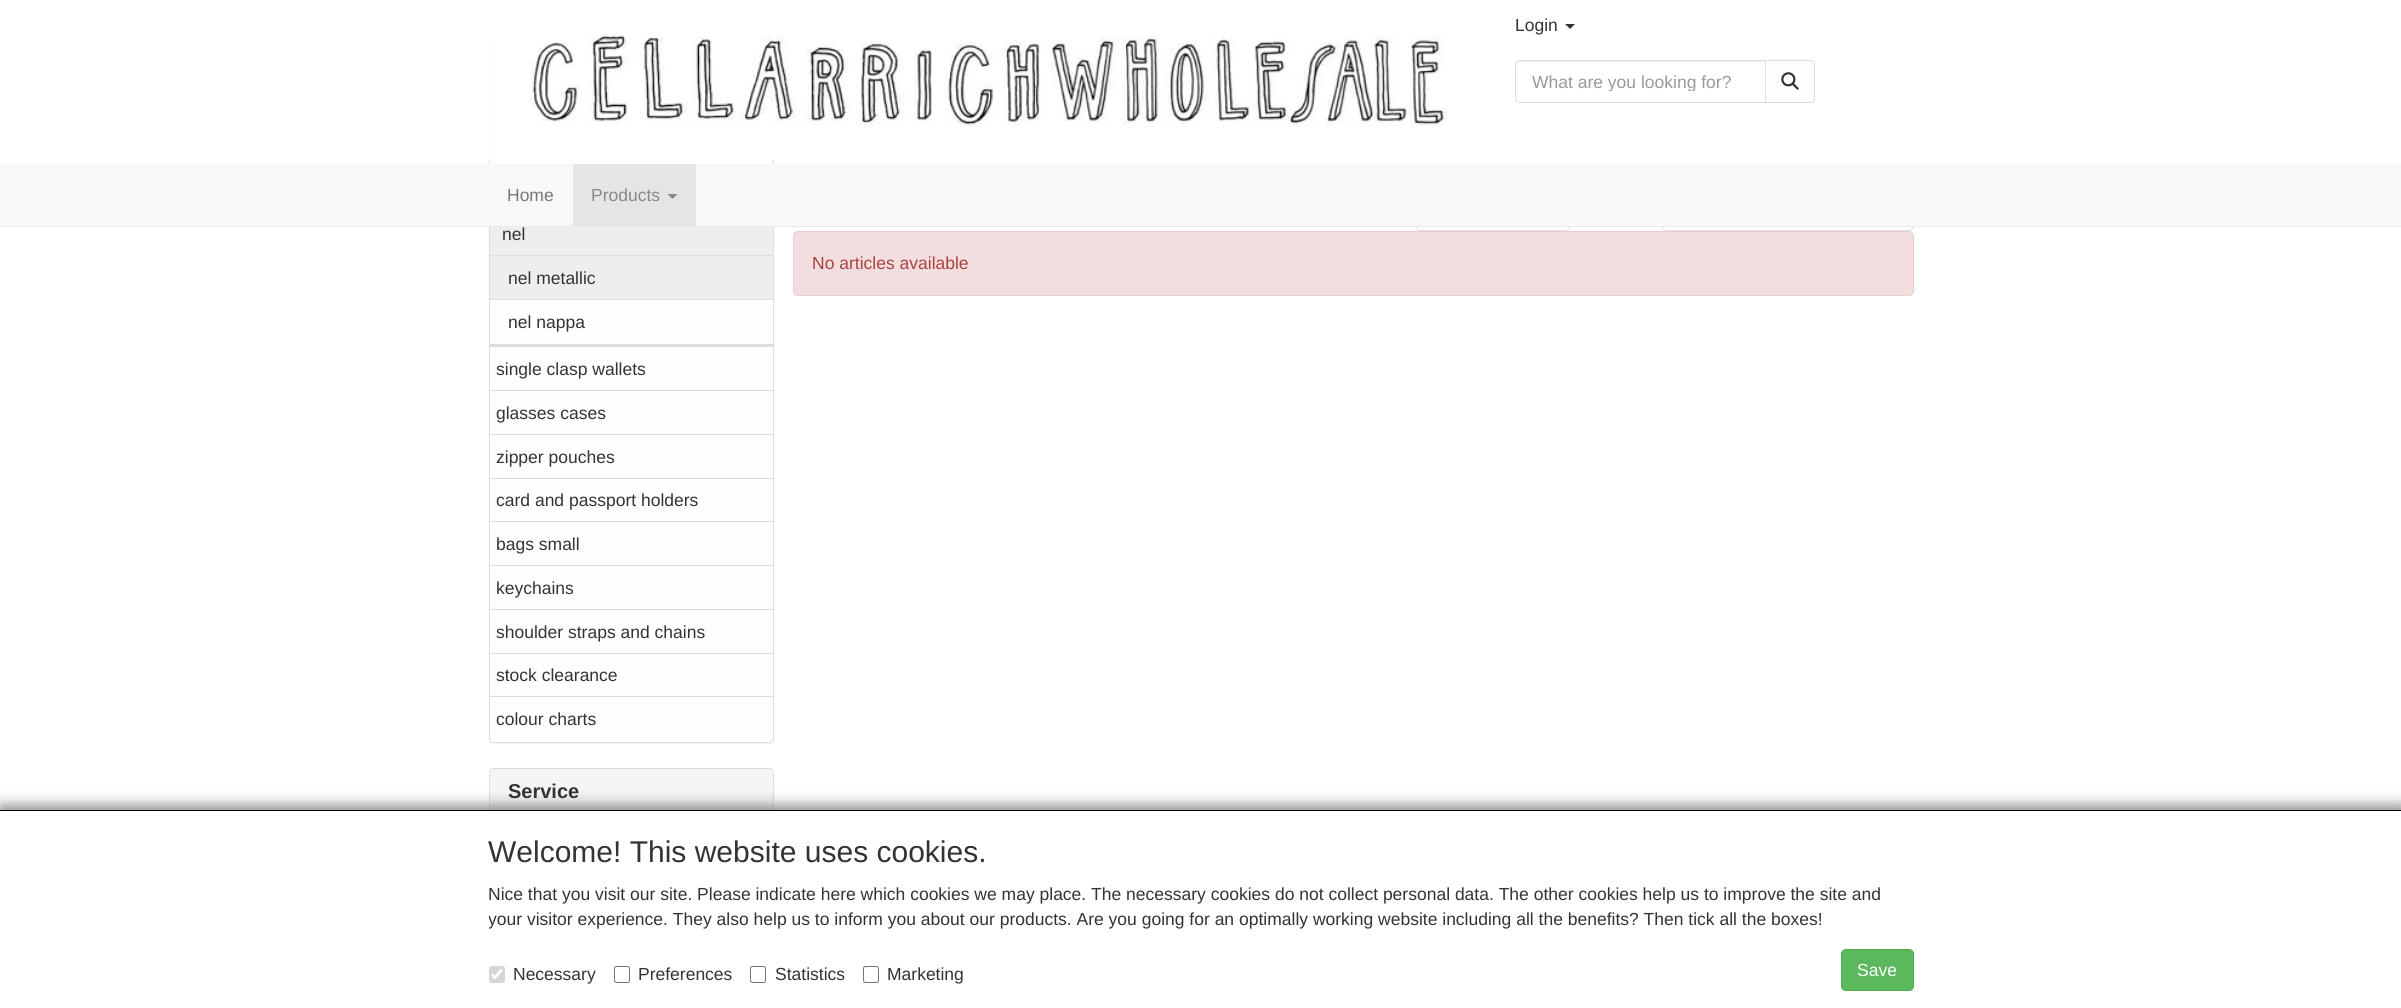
import math
import cairo



def rounded_rect(context, x, y, w, h, r):
    context.new_sub_path()
    for i, (u, v) in enumerate([(x + w - r, y + h - r), (x + r, y + h - r), (x + r, y + r), (x + w - r, y + r)]):
        context.arc(u, v, r, i * math.pi / 2, (i + 1) * math.pi / 2)
    context.close_path()


def draw_shadow(context, x, y, w, h, r, blur, alpha):
    context.push_group_with_content(cairo.Content.ALPHA)
    context.set_operator(cairo.Operator.SOURCE)
    for i in range(15, -16, -2):
        e = blur * i / 6
        if min(w, h) + 2 * e > 0:
            context.set_source_rgba(0, 0, 0, alpha * math.erfc((i - 1) / 8.5) / 2)
            rounded_rect(context, x - e, y - e, w + 2 * e, h + 2 * e, max(0, min(r + e + blur * .6, min(w, h) / 2 + e)))
            context.fill()
    context.mask(context.pop_group())


def draw_image(context, path, x, y, w, h):
    context.save()
    context.set_source_surface(cairo.ImageSurface.create_from_png(path), x, y)
    context.rectangle(x, y, w, h)
    context.fill()
    context.restore()


def draw(context):
    context.set_source_rgb(1, 1, 1)
    context.paint()
    context.set_source_rgb(0, 0, 0)
    draw_shadow(context, 489, 33, 285, 711, 5, 0.5, 0.05)
    context.set_source_rgb(254 / 255, 254 / 255, 254 / 255)
    rounded_rect(context, 489.5, 31.5, 284, 711, 4.5)
    context.fill_preserve()
    context.set_source_rgb(221 / 255, 221 / 255, 221 / 255)
    context.set_line_width(1)
    context.stroke()
    context.set_source_rgb(1, 1, 1)
    context.rectangle(489, 31, 285, 129)
    context.fill()
    draw_image(context, "images/1.png", 531, 35, 916, 92)
    context.set_source_rgb(51 / 255, 51 / 255, 51 / 255)
    context.new_path()
    context.move_to(1565, 24)
    context.line_to(1575, 24)
    context.line_to(1570, 29)
    context.close_path()
    context.fill()
    context.set_source_rgb(236 / 255, 236 / 255, 236 / 255)
    context.new_path()
    context.move_to(1520, 62)
    context.line_to(1765, 62)
    context.line_to(1765, 61)
    context.line_to(1520, 61)
    context.curve_to(1518, 61, 1516, 63, 1516, 65)
    context.line_to(1516, 66)
    context.curve_to(1516, 64, 1518, 62, 1520, 62)
    context.close_path()
    context.fill()
    context.new_path()
    context.move_to(1520, 60.5)
    context.line_to(1765.5, 60.5)
    context.line_to(1765.5, 102.5)
    context.line_to(1520, 102.5)
    context.curve_to(1517.5, 102.5, 1515.5, 100.5, 1515.5, 98)
    context.line_to(1515.5, 65)
    context.curve_to(1515.5, 62.5, 1517.5, 60.5, 1520, 60.5)
    context.close_path()
    context.set_source_rgb(221 / 255, 221 / 255, 221 / 255)
    context.stroke()
    context.set_source_rgb(254 / 255, 254 / 255, 254 / 255)
    context.new_path()
    context.move_to(1765.5, 60.5)
    context.line_to(1810, 60.5)
    context.curve_to(1812.5, 60.5, 1814.5, 62.5, 1814.5, 65)
    context.line_to(1814.5, 98)
    context.curve_to(1814.5, 100.5, 1812.5, 102.5, 1810, 102.5)
    context.line_to(1765.5, 102.5)
    context.close_path()
    context.fill_preserve()
    context.set_source_rgb(221 / 255, 221 / 255, 221 / 255)
    context.stroke()
    draw_image(context, "images/2.png", 1781, 72, 18, 18)
    rounded_rect(context, 1415.5, 189.5, 155, 41, 4.5)
    context.stroke()
    context.set_source_rgb(236 / 255, 236 / 255, 236 / 255)
    context.new_path()
    context.move_to(1666, 191)
    context.line_to(1909, 191)
    context.curve_to(1911, 191, 1912, 193, 1912, 195)
    context.line_to(1912, 229)
    context.curve_to(1913, 228, 1913, 227, 1913, 226)
    context.line_to(1913, 194)
    context.curve_to(1913, 192, 1911, 190, 1909, 190)
    context.line_to(1667, 190)
    context.curve_to(1666, 190, 1664, 191, 1664, 192)
    context.close_path()
    context.fill()
    rounded_rect(context, 1661.5, 189.5, 252, 41, 4.5)
    context.set_source_rgb(221 / 255, 221 / 255, 221 / 255)
    context.stroke()
    context.set_source_rgb(248 / 255, 248 / 255, 248 / 255)
    context.rectangle(0, 164, 2401, 62)
    context.fill()
    context.set_source_rgb(235 / 255, 235 / 255, 235 / 255)
    context.rectangle(0, 226, 2401, 1)
    context.fill()
    context.set_source_rgb(229 / 255, 229 / 255, 229 / 255)
    context.rectangle(573, 164, 123, 62)
    context.fill()
    context.set_source_rgb(136 / 255, 136 / 255, 136 / 255)
    context.new_path()
    context.move_to(667.5, 194)
    context.line_to(677.5, 194)
    context.line_to(672.5, 199)
    context.close_path()
    context.fill()
    context.set_source_rgb(221 / 255, 221 / 255, 221 / 255)
    context.rectangle(490, 344, 283, 3)
    context.fill()
    context.set_source_rgb(238 / 255, 238 / 255, 238 / 255)
    context.rectangle(490, 227, 283, 28)
    context.fill()
    context.rectangle(490, 256, 283, 43)
    context.fill()
    context.set_source_rgb(221 / 255, 221 / 255, 221 / 255)
    context.rectangle(490, 255, 283, 1)
    context.fill()
    context.rectangle(490, 299, 283, 1)
    context.fill()
    context.rectangle(490, 390, 283, 1)
    context.fill()
    context.rectangle(490, 434, 283, 1)
    context.fill()
    context.rectangle(490, 478, 283, 1)
    context.fill()
    context.rectangle(490, 521, 283, 1)
    context.fill()
    context.rectangle(490, 565, 283, 1)
    context.fill()
    context.rectangle(490, 609, 283, 1)
    context.fill()
    context.rectangle(490, 653, 283, 1)
    context.fill()
    context.rectangle(490, 696, 283, 1)
    context.fill()
    rounded_rect(context, 489.5, 768.5, 284, 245, 4.5)
    context.stroke()
    context.set_source_rgb(245 / 255, 245 / 255, 245 / 255)
    context.new_path()
    context.move_to(494, 769)
    context.line_to(769, 769)
    context.curve_to(771, 769, 773, 771, 773, 773)
    context.line_to(773, 816)
    context.line_to(490, 816)
    context.line_to(490, 773)
    context.curve_to(490, 771, 492, 769, 494, 769)
    context.close_path()
    context.fill()
    context.set_source_rgb(242 / 255, 222 / 255, 222 / 255)
    rounded_rect(context, 793.5, 231.5, 1120, 64, 4.5)
    context.fill_preserve()
    context.set_source_rgb(235 / 255, 204 / 255, 209 / 255)
    context.stroke()
    context.set_source_rgb(128 / 255, 128 / 255, 128 / 255)
    draw_shadow(context, 1, 806, 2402, 199, 0, 7.5, 1)
    context.set_source_rgb(1, 1, 1)
    context.rectangle(0, 811, 2401, 197)
    context.fill()
    context.set_source_rgb(0, 0, 0)
    context.rectangle(0, 810, 2401, 1)
    context.fill()
    context.set_source_rgb(214 / 255, 214 / 255, 214 / 255)
    rounded_rect(context, 489, 966, 16, 17, 2.5)
    context.fill()
    context.new_path()
    context.move_to(492, 974.5)
    context.line_to(495, 977.5)
    context.line_to(502, 969.5)
    context.set_source_rgb(1, 1, 1)
    context.set_line_width(2.6)
    context.stroke()
    rounded_rect(context, 614.5, 966.5, 15, 16, 2)
    context.set_source_rgb(118 / 255, 118 / 255, 118 / 255)
    context.set_line_width(1)
    context.stroke()
    rounded_rect(context, 750.5, 966.5, 15, 16, 2)
    context.stroke()
    rounded_rect(context, 863.5, 966.5, 15, 16, 2)
    context.stroke()
    context.set_source_rgb(92 / 255, 184 / 255, 92 / 255)
    rounded_rect(context, 1841.5, 949.5, 72, 41, 4.5)
    context.fill_preserve()
    context.set_source_rgb(76 / 255, 174 / 255, 76 / 255)
    context.stroke()
    context.select_font_face("Liberation Sans")
    context.set_font_size(17.5)
    context.set_source_rgb(51 / 255, 51 / 255, 51 / 255)
    context.move_to(1515, 31)
    context.show_text("Login")
    context.save()
    context.rectangle(1531, 71, 222, 20)
    context.clip()
    context.set_source_rgb(153 / 255, 153 / 255, 153 / 255)
    context.move_to(1532, 88)
    context.show_text("What are you looking for?")
    context.restore()
    context.set_source_rgb(119 / 255, 119 / 255, 119 / 255)
    context.move_to(507, 201)
    context.show_text("Home")
    context.set_source_rgb(136 / 255, 136 / 255, 136 / 255)
    context.move_to(591, 201)
    context.show_text("Products")
    context.set_source_rgb(51 / 255, 51 / 255, 51 / 255)
    context.move_to(502, 240)
    context.show_text("nel")
    context.move_to(508, 284)
    context.show_text("nel metallic")
    context.move_to(508, 328)
    context.show_text("nel nappa")
    context.move_to(496, 375)
    context.show_text("single clasp wallets")
    context.move_to(496, 419)
    context.show_text("glasses cases")
    context.move_to(496, 463)
    context.show_text("zipper pouches")
    context.move_to(496, 506)
    context.show_text("card and passport holders")
    context.move_to(496, 550)
    context.show_text("bags small")
    context.move_to(496, 594)
    context.show_text("keychains")
    context.move_to(496, 638)
    context.show_text("shoulder straps and chains")
    context.move_to(496, 681)
    context.show_text("stock clearance")
    context.move_to(496, 725)
    context.show_text("colour charts")
    context.select_font_face("Liberation Sans", cairo.FontSlant.NORMAL, cairo.FontWeight.BOLD)
    context.set_font_size(20)
    context.move_to(508, 798)
    context.show_text("Service")
    context.select_font_face("Liberation Sans")
    context.set_font_size(17.5)
    context.set_source_rgb(169 / 255, 68 / 255, 66 / 255)
    context.move_to(812, 269)
    context.show_text("No articles available")
    context.set_font_size(30)
    context.set_source_rgb(51 / 255, 51 / 255, 51 / 255)
    context.move_to(488, 862)
    context.show_text("Welcome! This website uses cookies.")
    context.set_font_size(17.5)
    context.move_to(488, 900)
    context.show_text("Nice that you visit our site. Please indicate here which cookies we may place. The necessary cookies do not collect personal data. The other cookies help us to improve the site and")
    context.save()
    context.rectangle(489, 881, 1425, 50)
    context.clip()
    context.move_to(488, 925)
    context.show_text("your visitor experience. They also help us to inform you about our products. Are you going for an optimally working website including all the benefits? Then tick all the boxes!")
    context.restore()
    context.move_to(513, 980)
    context.show_text("Necessary")
    context.move_to(638, 980)
    context.show_text("Preferences")
    context.move_to(775, 980)
    context.show_text("Statistics")
    context.move_to(887, 980)
    context.show_text("Marketing")
    context.set_source_rgb(254 / 255, 254 / 255, 254 / 255)
    context.move_to(1857, 976)
    context.show_text("Save")


surface = cairo.ImageSurface(cairo.Format.RGB24, 2401, 1008)
context = cairo.Context(surface)
options = cairo.FontOptions()
options.set_hint_metrics(cairo.HintMetrics.OFF)
options.set_hint_style(cairo.HintStyle.NONE)
context.set_font_options(options)
context.set_miter_limit(4)
draw(context)
surface.write_to_png("out.png")
